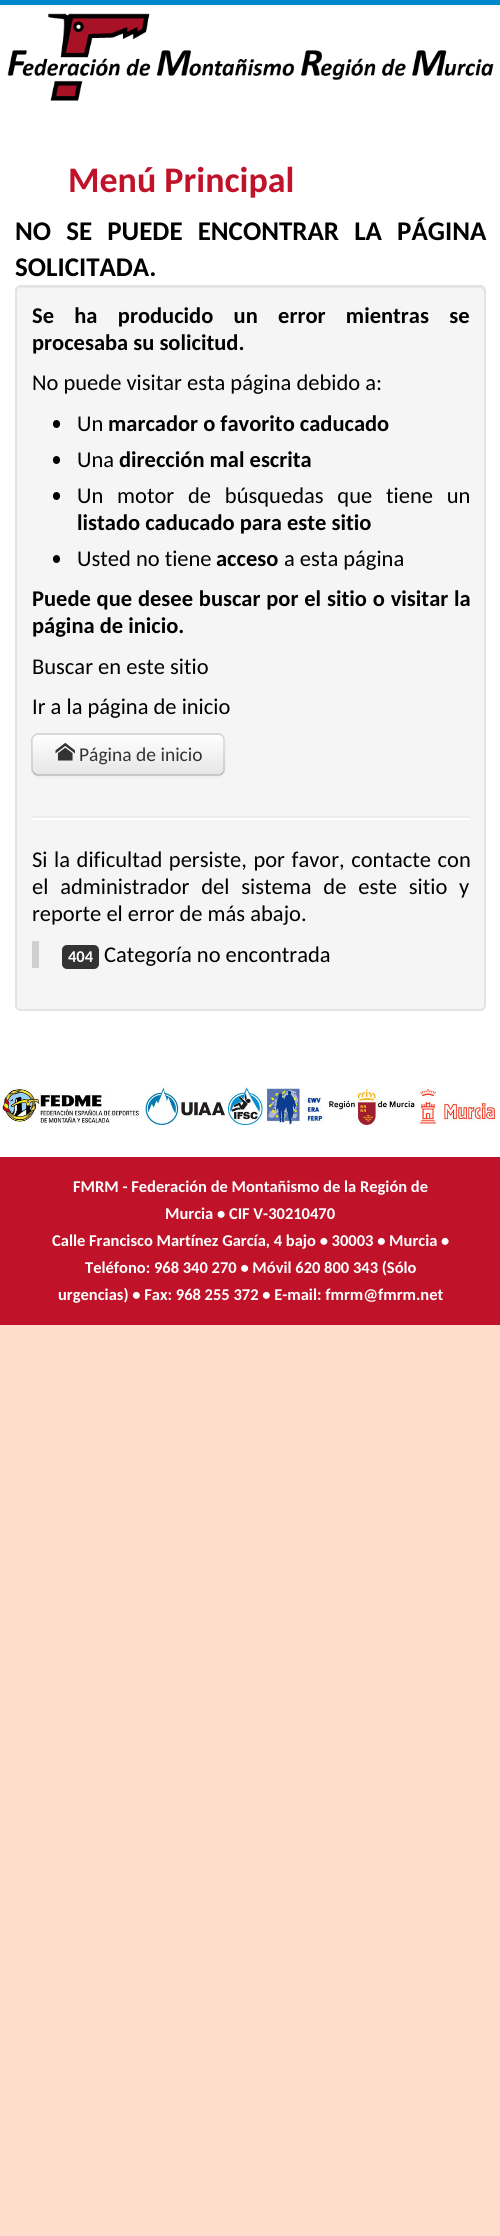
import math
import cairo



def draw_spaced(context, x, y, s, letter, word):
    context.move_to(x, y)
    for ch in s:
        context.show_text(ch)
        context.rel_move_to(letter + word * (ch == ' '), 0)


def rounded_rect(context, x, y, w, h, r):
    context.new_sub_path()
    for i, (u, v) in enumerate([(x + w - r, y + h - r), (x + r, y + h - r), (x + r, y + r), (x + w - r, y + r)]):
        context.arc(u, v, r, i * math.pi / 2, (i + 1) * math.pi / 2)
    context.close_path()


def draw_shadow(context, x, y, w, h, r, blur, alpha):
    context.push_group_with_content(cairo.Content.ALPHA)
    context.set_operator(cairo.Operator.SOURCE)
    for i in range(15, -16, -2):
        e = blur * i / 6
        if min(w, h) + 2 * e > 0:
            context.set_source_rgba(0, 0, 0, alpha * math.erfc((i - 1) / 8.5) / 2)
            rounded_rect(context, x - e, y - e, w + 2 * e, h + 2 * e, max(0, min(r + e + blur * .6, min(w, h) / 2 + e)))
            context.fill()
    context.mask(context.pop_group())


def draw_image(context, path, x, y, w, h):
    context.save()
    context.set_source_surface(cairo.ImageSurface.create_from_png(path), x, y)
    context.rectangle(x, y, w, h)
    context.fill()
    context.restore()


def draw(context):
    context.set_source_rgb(1, 221 / 255, 204 / 255)
    context.paint()
    context.set_source_rgb(0, 136 / 255, 204 / 255)
    context.rectangle(0, 0, 500, 5)
    context.fill()
    context.set_source_rgb(1, 1, 1)
    context.rectangle(0, 5, 500, 1152)
    context.fill()
    draw_image(context, "images/1.png", 7, 13, 487, 88)
    context.set_source_rgb(245 / 255, 245 / 255, 245 / 255)
    rounded_rect(context, 15, 285, 471, 726, 6)
    context.fill()
    context.set_source_rgb(233 / 255, 233 / 255, 233 / 255)
    context.new_path()
    context.move_to(21, 288)
    context.line_to(480, 288)
    context.curve_to(482, 288, 484, 290, 484, 292)
    context.line_to(484, 1006)
    context.line_to(483, 1009)
    context.curve_to(484, 1008, 485, 1006, 485, 1005)
    context.line_to(485, 292)
    context.curve_to(485, 289, 483, 287, 480, 287)
    context.line_to(22, 287)
    context.curve_to(20, 287, 19, 288, 18, 289)
    context.close_path()
    context.fill()
    rounded_rect(context, 16, 286, 469, 724, 5)
    context.set_source_rgb(227 / 255, 227 / 255, 227 / 255)
    context.stroke()
    context.set_source_rgb(0, 0, 0)
    rounded_rect(context, 53, 420, 7, 8, 3.5)
    context.fill()
    rounded_rect(context, 53, 456, 7, 8, 3.5)
    context.fill()
    rounded_rect(context, 53, 492, 7, 8, 3.5)
    context.fill()
    rounded_rect(context, 53, 555, 7, 8, 3.5)
    context.fill()
    context.set_source_rgb(0, 0, 0)
    draw_shadow(context, 32, 735, 193, 42, 6, 1.5, 0.05)
    context.set_source_rgb(245 / 255, 245 / 255, 245 / 255)
    rounded_rect(context, 32, 734, 193, 42, 6)
    context.fill()
    context.save()
    rounded_rect(context, 32, 734, 193, 42, 6)
    context.clip()
    gradient = cairo.LinearGradient(128, 735, 128, 774)
    gradient.add_color_stop_rgba(0, 1, 1, 1, 1)
    gradient.add_color_stop_rgba(1, 230 / 255, 230 / 255, 230 / 255, 1)
    context.set_source(gradient)
    context.rectangle(32, 735, 193, 39)
    context.fill()
    context.restore()
    context.new_path()
    context.move_to(222.5, 773)
    context.curve_to(221.5, 774, 220.5, 775, 219, 775)
    context.line_to(37.5, 775)
    context.curve_to(36, 775, 35, 774, 34, 773)
    context.set_source_rgba(0, 0, 0, 0.25)
    context.set_line_width(1.5)
    context.stroke()
    context.new_path()
    context.move_to(34, 773)
    context.curve_to(33, 772, 32, 771, 32, 769.5)
    context.line_to(32, 739.5)
    context.curve_to(32, 738, 33, 737, 34, 736)
    context.curve_to(35, 735, 36, 734, 37.5, 734)
    context.line_to(219, 734)
    context.curve_to(220.5, 734, 221.5, 735, 222.5, 736)
    context.curve_to(223.5, 737, 224, 738, 224, 739.5)
    context.line_to(224, 769.5)
    context.curve_to(224, 771, 223.5, 772, 222.5, 773)
    context.set_source_rgba(0, 0, 0, 0.15)
    context.stroke()
    draw_image(context, "images/2.png", 55, 742, 20, 19)
    context.set_source_rgb(238 / 255, 238 / 255, 238 / 255)
    context.rectangle(32, 816, 438, 2)
    context.fill()
    context.set_source_rgb(1, 1, 1)
    context.rectangle(32, 818, 438, 2)
    context.fill()
    context.set_source_rgb(208 / 255, 208 / 255, 208 / 255)
    context.rectangle(32, 941, 7, 27)
    context.fill()
    context.set_source_rgb(51 / 255, 51 / 255, 51 / 255)
    rounded_rect(context, 62, 945, 37, 24, 5)
    context.fill()
    draw_image(context, "images/3.png", 1, 1087, 139, 38)
    draw_image(context, "images/4.png", 145, 1087, 80, 38)
    draw_image(context, "images/5.png", 228, 1087, 35, 38)
    draw_image(context, "images/6.png", 265, 1087, 59, 38)
    draw_image(context, "images/7.png", 327, 1087, 89, 38)
    draw_image(context, "images/8.png", 418, 1087, 80, 38)
    context.set_source_rgb(192 / 255, 19 / 255, 42 / 255)
    context.rectangle(0, 1157, 500, 168)
    context.fill()
    context.select_font_face("Carlito", cairo.FontSlant.NORMAL, cairo.FontWeight.BOLD)
    context.set_font_size(36)
    context.move_to(68, 192)
    context.show_text("Menú Principal")
    context.set_font_size(27)
    context.set_source_rgb(0, 0, 0)
    draw_spaced(context, 15, 240, "NO SE PUEDE ENCONTRAR LA PÁGINA", 0, 9)
    context.move_to(15, 276)
    context.show_text("SOLICITADA.")
    context.set_font_size(22.5)
    draw_spaced(context, 32, 323, "Se ha producido un error mientras se", 0, 15.25)
    context.move_to(32, 350)
    context.show_text("procesaba su solicitud.")
    context.select_font_face("Carlito")
    context.move_to(32, 390)
    context.show_text("No puede visitar esta página debido a:")
    context.move_to(77, 431)
    context.show_text("Un")
    context.select_font_face("Carlito", cairo.FontSlant.NORMAL, cairo.FontWeight.BOLD)
    context.move_to(108, 431)
    context.show_text("marcador o favorito caducado")
    context.select_font_face("Carlito")
    context.move_to(77, 467)
    context.show_text("Una")
    context.select_font_face("Carlito", cairo.FontSlant.NORMAL, cairo.FontWeight.BOLD)
    context.move_to(119, 467)
    context.show_text("dirección mal escrita")
    context.select_font_face("Carlito")
    draw_spaced(context, 77, 503, "Un motor de búsquedas que tiene un", 0, 8.75)
    context.select_font_face("Carlito", cairo.FontSlant.NORMAL, cairo.FontWeight.BOLD)
    context.move_to(77, 530)
    context.show_text("listado caducado para este sitio")
    context.select_font_face("Carlito")
    context.move_to(77, 566)
    context.show_text("Usted no tiene")
    context.select_font_face("Carlito", cairo.FontSlant.NORMAL, cairo.FontWeight.BOLD)
    context.move_to(216, 566)
    context.show_text("acceso")
    context.select_font_face("Carlito")
    context.move_to(284, 566)
    context.show_text("a esta página")
    context.select_font_face("Carlito", cairo.FontSlant.NORMAL, cairo.FontWeight.BOLD)
    draw_spaced(context, 32, 606, "Puede que desee buscar por el sitio o visitar la", 0, 0.75)
    context.move_to(32, 633)
    context.show_text("página de inicio.")
    context.select_font_face("Carlito")
    context.move_to(32, 674)
    context.show_text("Buscar en este sitio")
    context.move_to(32, 714)
    context.show_text("Ir a la página de inicio")
    context.set_font_size(19.5)
    context.set_source_rgb(51 / 255, 51 / 255, 51 / 255)
    context.move_to(79, 761)
    context.show_text("Página de inicio")
    context.set_font_size(22.5)
    context.set_source_rgb(0, 0, 0)
    draw_spaced(context, 32, 867, "Si la dificultad persiste, por favor, contacte con", 0, 1.5)
    draw_spaced(context, 32, 894, "el administrador del sistema de este sitio y", 0, 6.75)
    context.move_to(32, 921)
    context.show_text("reporte el error de más abajo.")
    context.select_font_face("Carlito", cairo.FontSlant.NORMAL, cairo.FontWeight.BOLD)
    context.set_font_size(16.5)
    context.set_source_rgb(1, 1, 1)
    context.move_to(68, 962)
    context.show_text("404")
    context.select_font_face("Carlito")
    context.set_font_size(22.5)
    context.set_source_rgb(0, 0, 0)
    context.move_to(104, 962)
    context.show_text("Categoría no encontrada")
    context.select_font_face("Carlito", cairo.FontSlant.NORMAL, cairo.FontWeight.BOLD)
    context.set_font_size(16.5)
    context.set_source_rgb(1, 1, 1)
    context.move_to(73, 1192)
    context.show_text("FMRM - Federación de Montañismo de la Región de")
    context.move_to(165, 1219)
    context.show_text("Murcia • CIF V-30210470")
    context.move_to(52, 1246)
    context.show_text("Calle Francisco Martínez García, 4 bajo • 30003 • Murcia •")
    context.move_to(85, 1273)
    context.show_text("Teléfono: 968 340 270 • Móvil 620 800 343 (Sólo")
    context.move_to(58, 1300)
    context.show_text("urgencias) • Fax: 968 255 372 • E-mail: fmrm@fmrm.net")


surface = cairo.ImageSurface(cairo.Format.RGB24, 500, 2236)
context = cairo.Context(surface)
options = cairo.FontOptions()
options.set_hint_metrics(cairo.HintMetrics.OFF)
options.set_hint_style(cairo.HintStyle.NONE)
context.set_font_options(options)
context.set_miter_limit(4)
draw(context)
surface.write_to_png("out.png")
